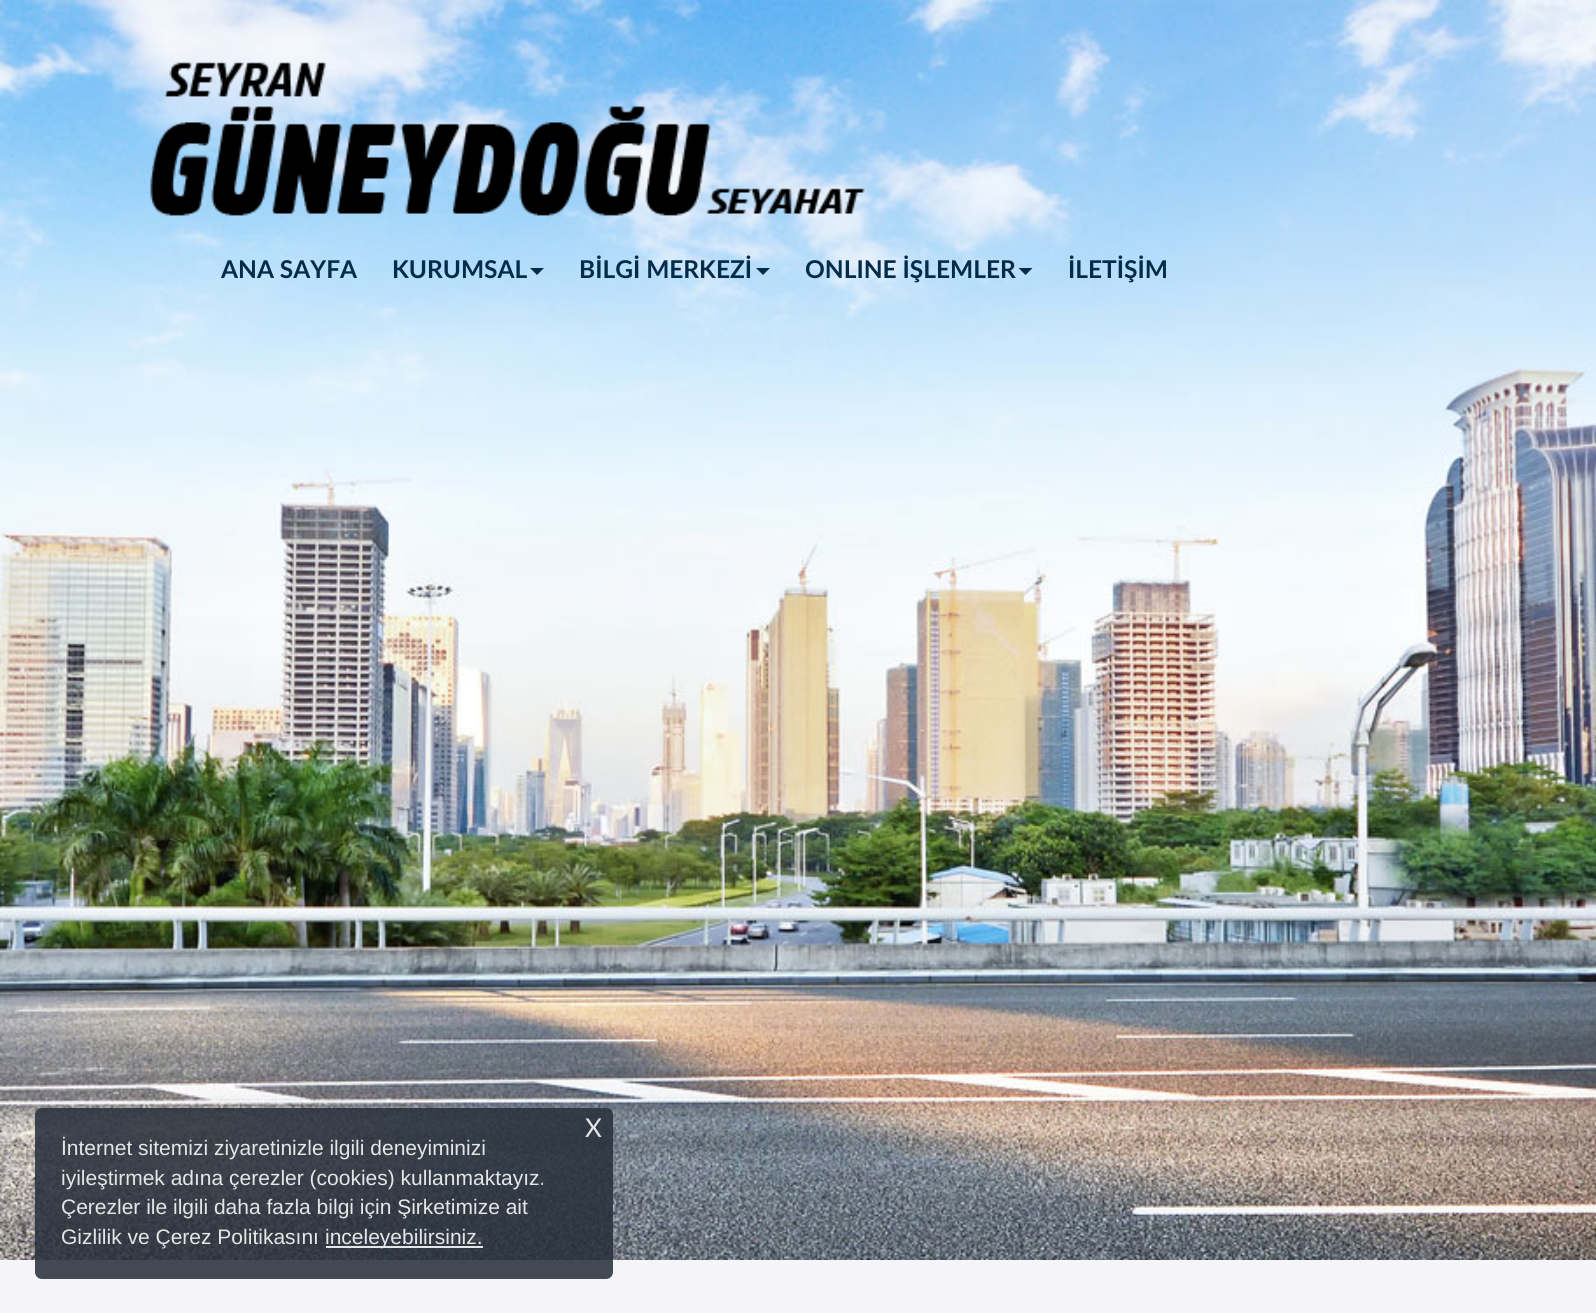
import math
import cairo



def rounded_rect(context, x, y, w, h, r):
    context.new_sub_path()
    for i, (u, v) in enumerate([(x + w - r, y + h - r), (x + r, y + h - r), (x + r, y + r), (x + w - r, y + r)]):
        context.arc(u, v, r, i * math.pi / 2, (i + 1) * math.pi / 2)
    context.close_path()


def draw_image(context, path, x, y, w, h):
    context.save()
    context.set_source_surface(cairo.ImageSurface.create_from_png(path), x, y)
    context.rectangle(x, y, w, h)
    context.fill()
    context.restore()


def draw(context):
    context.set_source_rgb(245 / 255, 244 / 255, 249 / 255)
    context.paint()
    draw_image(context, "images/1.png", 0, 0, 1596, 1260)
    draw_image(context, "images/2.png", 150, 62, 715, 154)
    context.set_source_rgb(3 / 255, 44 / 255, 74 / 255)
    context.new_path()
    context.move_to(530, 268)
    context.line_to(544, 268)
    context.line_to(537, 275)
    context.close_path()
    context.fill()
    context.new_path()
    context.move_to(756, 268)
    context.line_to(770, 268)
    context.line_to(763, 275)
    context.close_path()
    context.fill()
    context.new_path()
    context.move_to(1018.5, 268)
    context.line_to(1032.5, 268)
    context.line_to(1025.5, 275)
    context.close_path()
    context.fill()
    context.set_source_rgba(39 / 255, 48 / 255, 59 / 255, 0.87)
    rounded_rect(context, 35, 1108, 578, 171, 7)
    context.fill()
    context.set_source_rgba(1, 1, 1, 0.87)
    context.rectangle(326, 1246, 157, 2)
    context.fill()
    context.select_font_face("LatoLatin", cairo.FontSlant.NORMAL, cairo.FontWeight.BOLD)
    context.set_font_size(24.5)
    context.set_source_rgb(3 / 255, 44 / 255, 74 / 255)
    context.move_to(221, 278)
    context.show_text("ANA SAYFA")
    context.move_to(392, 278)
    context.show_text("KURUMSAL")
    context.move_to(579, 278)
    context.show_text("BİLGİ MERKEZİ")
    context.move_to(805, 278)
    context.show_text("ONLINE İŞLEMLER")
    context.move_to(1068, 278)
    context.show_text("İLETİŞİM")
    context.select_font_face("LatoLatin")
    context.set_font_size(26)
    context.set_source_rgb(229 / 255, 230 / 255, 231 / 255)
    context.move_to(585, 1137)
    context.show_text("X")
    context.select_font_face("Liberation Sans")
    context.set_font_size(21)
    context.move_to(61, 1155)
    context.show_text("İnternet sitemizi ziyaretinizle ilgili deneyiminizi")
    context.move_to(61, 1185)
    context.show_text("iyileştirmek adına çerezler (cookies) kullanmaktayız.")
    context.move_to(61, 1214)
    context.show_text("Çerezler ile ilgili daha fazla bilgi için Şirketimize ait")
    context.move_to(61, 1244)
    context.show_text("Gizlilik ve Çerez Politikasını")
    context.move_to(325, 1244)
    context.show_text("inceleyebilirsiniz.")


surface = cairo.ImageSurface(cairo.Format.RGB24, 1596, 1313)
context = cairo.Context(surface)
options = cairo.FontOptions()
options.set_hint_metrics(cairo.HintMetrics.OFF)
options.set_hint_style(cairo.HintStyle.NONE)
context.set_font_options(options)
context.set_miter_limit(4)
draw(context)
surface.write_to_png("out.png")
